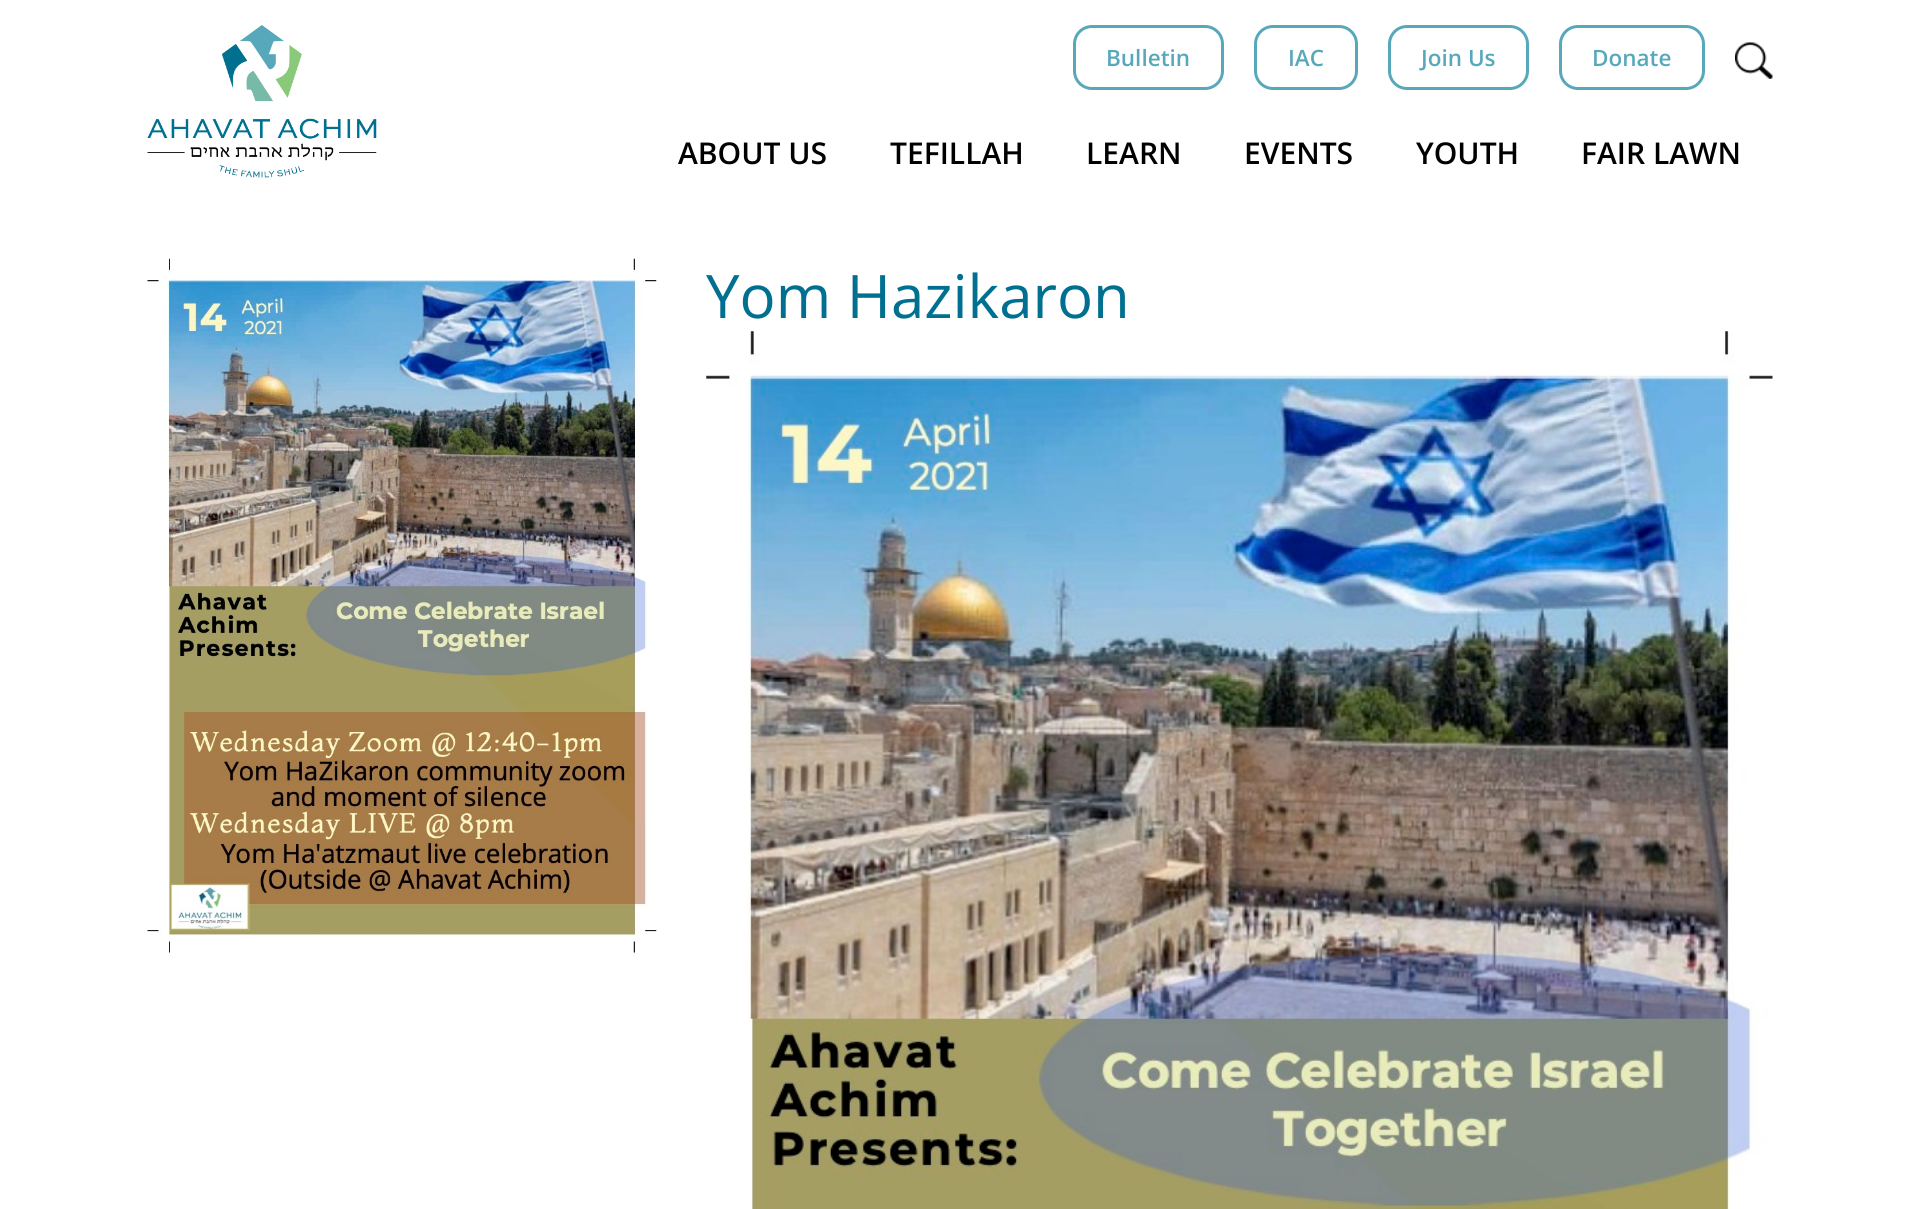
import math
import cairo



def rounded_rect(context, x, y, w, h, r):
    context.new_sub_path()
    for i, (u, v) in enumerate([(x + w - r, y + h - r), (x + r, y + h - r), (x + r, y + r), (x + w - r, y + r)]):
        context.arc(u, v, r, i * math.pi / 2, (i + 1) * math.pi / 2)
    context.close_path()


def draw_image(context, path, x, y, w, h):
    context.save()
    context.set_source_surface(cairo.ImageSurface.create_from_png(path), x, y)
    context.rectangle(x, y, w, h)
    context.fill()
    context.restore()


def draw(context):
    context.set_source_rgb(1, 1, 1)
    context.paint()
    draw_image(context, "images/1.png", 147, 25, 230, 153)
    rounded_rect(context, 1074.5, 26.5, 148, 62, 17.5)
    context.set_source_rgb(88 / 255, 168 / 255, 188 / 255)
    context.set_line_width(3)
    context.stroke()
    rounded_rect(context, 1255.5, 26.5, 101, 62, 17.5)
    context.stroke()
    rounded_rect(context, 1389.5, 26.5, 138, 62, 17.5)
    context.stroke()
    rounded_rect(context, 1560.5, 26.5, 143, 62, 17.5)
    context.stroke()
    draw_image(context, "images/2.png", 1735, 42, 38, 37)
    draw_image(context, "images/3.png", 147, 258, 510, 695)
    draw_image(context, "images/4.png", 706, 331, 1067, 878)
    context.select_font_face("Open Sans SemiBold")
    context.set_font_size(22.5)
    context.move_to(1106, 66)
    context.show_text("Bulletin")
    context.move_to(1288, 66)
    context.show_text("IAC")
    context.move_to(1421, 66)
    context.show_text("Join Us")
    context.move_to(1592, 66)
    context.show_text("Donate")
    context.set_font_size(30)
    context.set_source_rgb(0, 0, 0)
    context.move_to(678, 164)
    context.show_text("ABOUT US")
    context.move_to(890, 164)
    context.show_text("TEFILLAH")
    context.move_to(1086, 164)
    context.show_text("LEARN")
    context.move_to(1244, 164)
    context.show_text("EVENTS")
    context.move_to(1416, 164)
    context.show_text("YOUTH")
    context.move_to(1581, 164)
    context.show_text("FAIR LAWN")
    context.select_font_face("Open Sans")
    context.set_font_size(60)
    context.set_source_rgb(0, 112 / 255, 144 / 255)
    context.move_to(706, 318)
    context.show_text("Yom Hazikaron")


surface = cairo.ImageSurface(cairo.Format.RGB24, 1920, 1209)
context = cairo.Context(surface)
options = cairo.FontOptions()
options.set_hint_metrics(cairo.HintMetrics.OFF)
options.set_hint_style(cairo.HintStyle.NONE)
context.set_font_options(options)
context.set_miter_limit(4)
draw(context)
surface.write_to_png("out.png")
